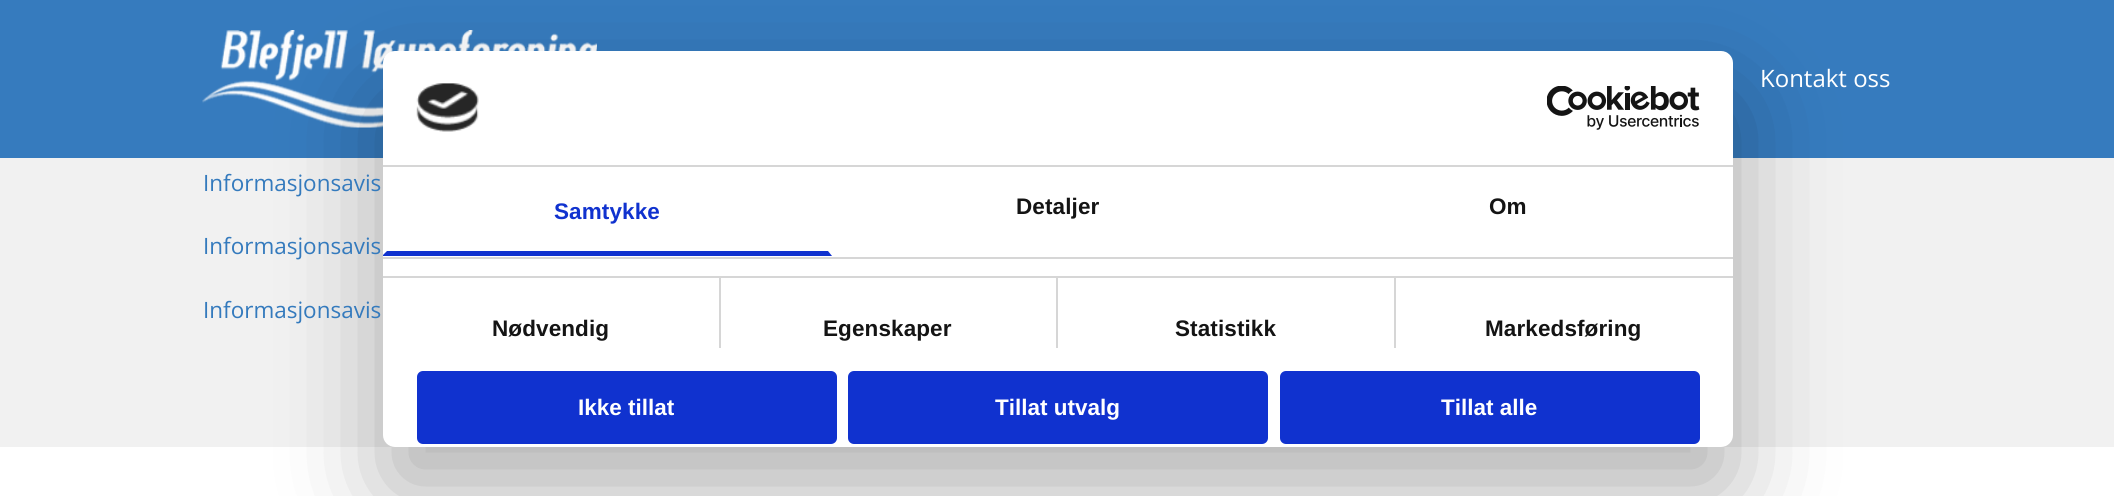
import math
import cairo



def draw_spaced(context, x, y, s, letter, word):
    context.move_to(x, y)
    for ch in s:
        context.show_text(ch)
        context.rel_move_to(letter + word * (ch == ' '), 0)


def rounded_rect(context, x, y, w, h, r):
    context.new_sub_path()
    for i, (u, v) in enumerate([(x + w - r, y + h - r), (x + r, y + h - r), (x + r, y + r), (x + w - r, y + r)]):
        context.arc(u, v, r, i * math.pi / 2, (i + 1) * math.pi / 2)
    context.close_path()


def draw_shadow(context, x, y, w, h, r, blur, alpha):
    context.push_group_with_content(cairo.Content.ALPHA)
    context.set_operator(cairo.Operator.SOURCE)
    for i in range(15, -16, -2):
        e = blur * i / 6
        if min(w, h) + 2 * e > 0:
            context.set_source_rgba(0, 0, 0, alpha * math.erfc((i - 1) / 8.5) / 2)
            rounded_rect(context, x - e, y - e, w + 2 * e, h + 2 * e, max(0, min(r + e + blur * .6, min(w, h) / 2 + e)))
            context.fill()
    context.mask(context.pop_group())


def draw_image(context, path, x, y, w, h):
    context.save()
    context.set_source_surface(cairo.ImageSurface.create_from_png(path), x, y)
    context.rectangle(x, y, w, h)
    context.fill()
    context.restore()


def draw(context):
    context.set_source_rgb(1, 1, 1)
    context.paint()
    context.set_source_rgb(54 / 255, 123 / 255, 190 / 255)
    context.rectangle(0, 0, 2114, 158)
    context.fill()
    draw_image(context, "images/1.png", 202, 30, 395, 98)
    context.set_source_rgb(241 / 255, 241 / 255, 241 / 255)
    context.rectangle(0, 158, 2114, 289)
    context.fill()
    context.set_source_rgb(0, 0, 0)
    draw_shadow(context, 383, 99, 1350, 396, 12, 51, 0.3)
    context.set_source_rgb(1, 1, 1)
    rounded_rect(context, 383, 51, 1350, 396, 12)
    context.fill()
    context.set_source_rgb(214 / 255, 214 / 255, 214 / 255)
    context.rectangle(383, 165, 1350, 2)
    context.fill()
    draw_image(context, "images/2.png", 416, 83, 63, 49)
    draw_image(context, "images/3.png", 1547, 86, 153, 44)
    context.rectangle(383, 257, 1350, 2)
    context.fill()
    context.set_source_rgb(16 / 255, 50 / 255, 207 / 255)
    context.new_path()
    context.move_to(832, 256)
    context.line_to(383, 256)
    context.line_to(383, 255)
    context.line_to(387, 251)
    context.line_to(828, 251)
    context.close_path()
    context.fill()
    context.set_source_rgb(214 / 255, 214 / 255, 214 / 255)
    context.rectangle(383, 276, 1350, 2)
    context.fill()
    context.rectangle(719, 278, 2, 70)
    context.fill()
    context.rectangle(1056, 278, 2, 70)
    context.fill()
    context.rectangle(1394, 278, 2, 70)
    context.fill()
    context.set_source_rgb(16 / 255, 50 / 255, 207 / 255)
    rounded_rect(context, 418.5, 372.5, 417, 70, 4.5)
    context.fill_preserve()
    context.set_line_width(3)
    context.stroke()
    rounded_rect(context, 849.5, 372.5, 417, 70, 4.5)
    context.fill_preserve()
    context.stroke()
    rounded_rect(context, 1281.5, 372.5, 417, 70, 4.5)
    context.fill_preserve()
    context.stroke()
    context.select_font_face("Open Sans")
    context.set_font_size(24)
    context.set_source_rgb(1, 1, 1)
    context.move_to(1760, 87)
    context.show_text("Kontakt oss")
    context.set_font_size(22.5)
    context.set_source_rgb(52 / 255, 122 / 255, 189 / 255)
    context.move_to(203, 191)
    context.show_text("Informasjonsavis")
    context.move_to(203, 254)
    context.show_text("Informasjonsavis")
    context.move_to(203, 318)
    context.show_text("Informasjonsavis")
    context.select_font_face("Liberation Sans", cairo.FontSlant.NORMAL, cairo.FontWeight.BOLD)
    context.set_source_rgb(16 / 255, 50 / 255, 207 / 255)
    draw_spaced(context, 554, 219, "Samtykke", 0.1, 0)
    context.set_source_rgb(20 / 255, 20 / 255, 20 / 255)
    draw_spaced(context, 1016, 214, "Detaljer", 0.1, 0)
    draw_spaced(context, 1489, 214, "Om", 0.1, 0)
    draw_spaced(context, 492, 336, "Nødvendig", 0.1, 0)
    draw_spaced(context, 823, 336, "Egenskaper", 0.1, 0)
    draw_spaced(context, 1175, 336, "Statistikk", 0.1, 0)
    draw_spaced(context, 1485, 336, "Markedsføring", 0.1, 0)
    context.set_source_rgb(1, 1, 1)
    context.move_to(578, 415)
    context.show_text("Ikke tillat")
    context.move_to(995, 415)
    context.show_text("Tillat utvalg")
    context.move_to(1441, 415)
    context.show_text("Tillat alle")


surface = cairo.ImageSurface(cairo.Format.RGB24, 2114, 496)
context = cairo.Context(surface)
options = cairo.FontOptions()
options.set_hint_metrics(cairo.HintMetrics.OFF)
options.set_hint_style(cairo.HintStyle.NONE)
context.set_font_options(options)
context.set_miter_limit(4)
draw(context)
surface.write_to_png("out.png")
